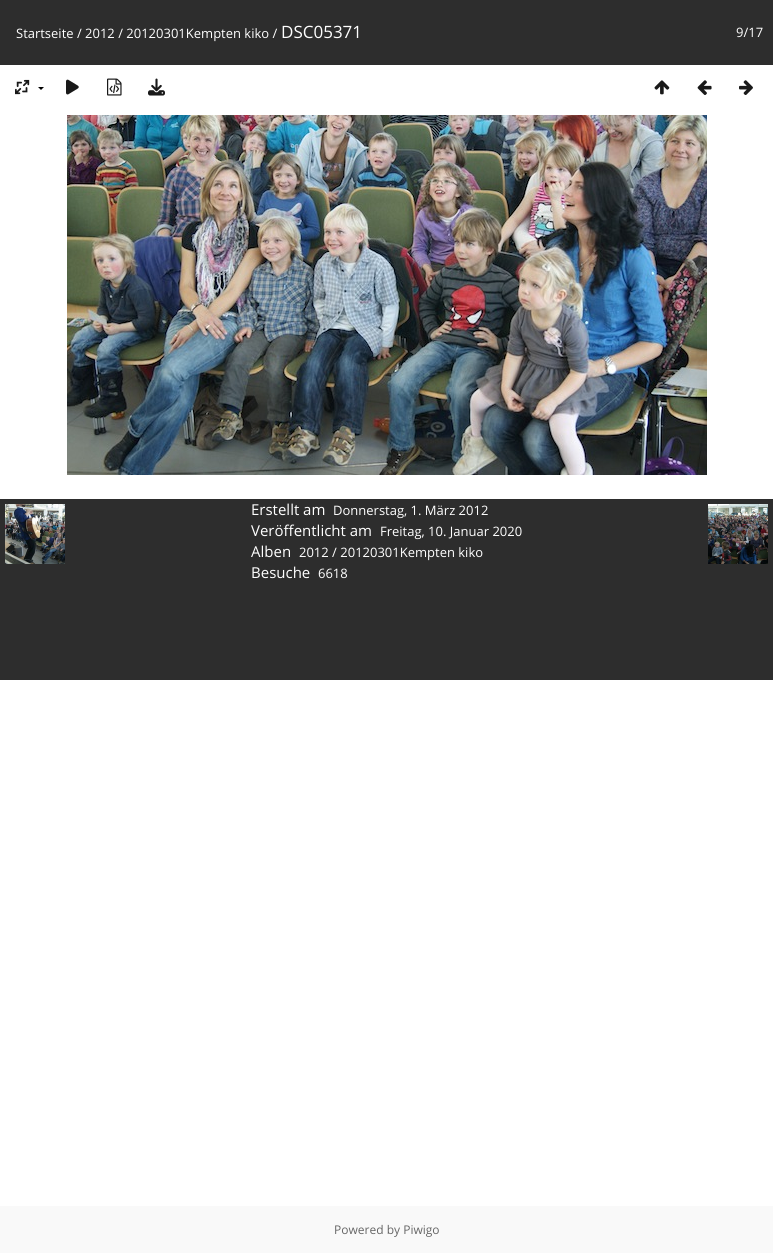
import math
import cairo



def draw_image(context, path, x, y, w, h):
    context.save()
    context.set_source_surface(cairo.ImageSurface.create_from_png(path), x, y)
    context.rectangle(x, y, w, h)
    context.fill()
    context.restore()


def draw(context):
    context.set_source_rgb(1, 1, 1)
    context.paint()
    context.set_source_rgb(45 / 255, 45 / 255, 45 / 255)
    context.rectangle(0, 0, 773, 65)
    context.fill()
    draw_image(context, "images/1.png", 15, 79, 15, 16)
    context.set_source_rgb(0, 0, 0)
    context.new_path()
    context.move_to(38, 87)
    context.line_to(44, 87)
    context.line_to(41, 90)
    context.close_path()
    context.fill()
    draw_image(context, "images/2.png", 66, 79, 13, 16)
    draw_image(context, "images/3.png", 107, 78, 15, 18)
    draw_image(context, "images/4.png", 148, 78, 17, 18)
    draw_image(context, "images/5.png", 654, 80, 16, 15)
    draw_image(context, "images/6.png", 697, 80, 15, 15)
    draw_image(context, "images/7.png", 739, 80, 14, 15)
    draw_image(context, "images/8.png", 67, 115, 640, 360)
    context.set_source_rgb(45 / 255, 45 / 255, 45 / 255)
    context.rectangle(0, 499, 773, 181)
    context.fill()
    draw_image(context, "images/9.png", 5, 504, 60, 60)
    draw_image(context, "images/10.png", 708, 504, 60, 60)
    context.set_source_rgb(249 / 255, 249 / 255, 249 / 255)
    context.rectangle(0, 1206, 773, 47)
    context.fill()
    context.select_font_face("Open Sans")
    context.set_font_size(13)
    context.set_source_rgb(1, 1, 1)
    context.move_to(16, 38)
    context.show_text("Startseite / 2012 / 20120301Kempten kiko /")
    context.set_font_size(17)
    context.move_to(281, 38)
    context.show_text("DSC05371")
    context.set_font_size(13)
    context.move_to(736, 37)
    context.show_text("9/17")
    context.set_font_size(15)
    context.move_to(251, 515)
    context.show_text("Erstellt am")
    context.set_font_size(13)
    context.move_to(333, 515)
    context.show_text("Donnerstag, 1. März 2012")
    context.set_font_size(15)
    context.move_to(251, 536)
    context.show_text("Veröffentlicht am")
    context.set_font_size(13)
    context.move_to(380, 536)
    context.show_text("Freitag, 10. Januar 2020")
    context.set_font_size(15)
    context.move_to(251, 557)
    context.show_text("Alben")
    context.set_font_size(13)
    context.move_to(299, 557)
    context.show_text("2012 / 20120301Kempten kiko")
    context.set_font_size(15)
    context.move_to(251, 578)
    context.show_text("Besuche")
    context.set_font_size(13)
    context.move_to(318, 578)
    context.show_text("6618")
    context.set_font_size(12)
    context.set_source_rgb(102 / 255, 102 / 255, 102 / 255)
    context.move_to(334, 1234)
    context.show_text("Powered by Piwigo")


surface = cairo.ImageSurface(cairo.Format.RGB24, 773, 1253)
context = cairo.Context(surface)
options = cairo.FontOptions()
options.set_hint_metrics(cairo.HintMetrics.OFF)
options.set_hint_style(cairo.HintStyle.NONE)
context.set_font_options(options)
context.set_miter_limit(4)
draw(context)
surface.write_to_png("out.png")
